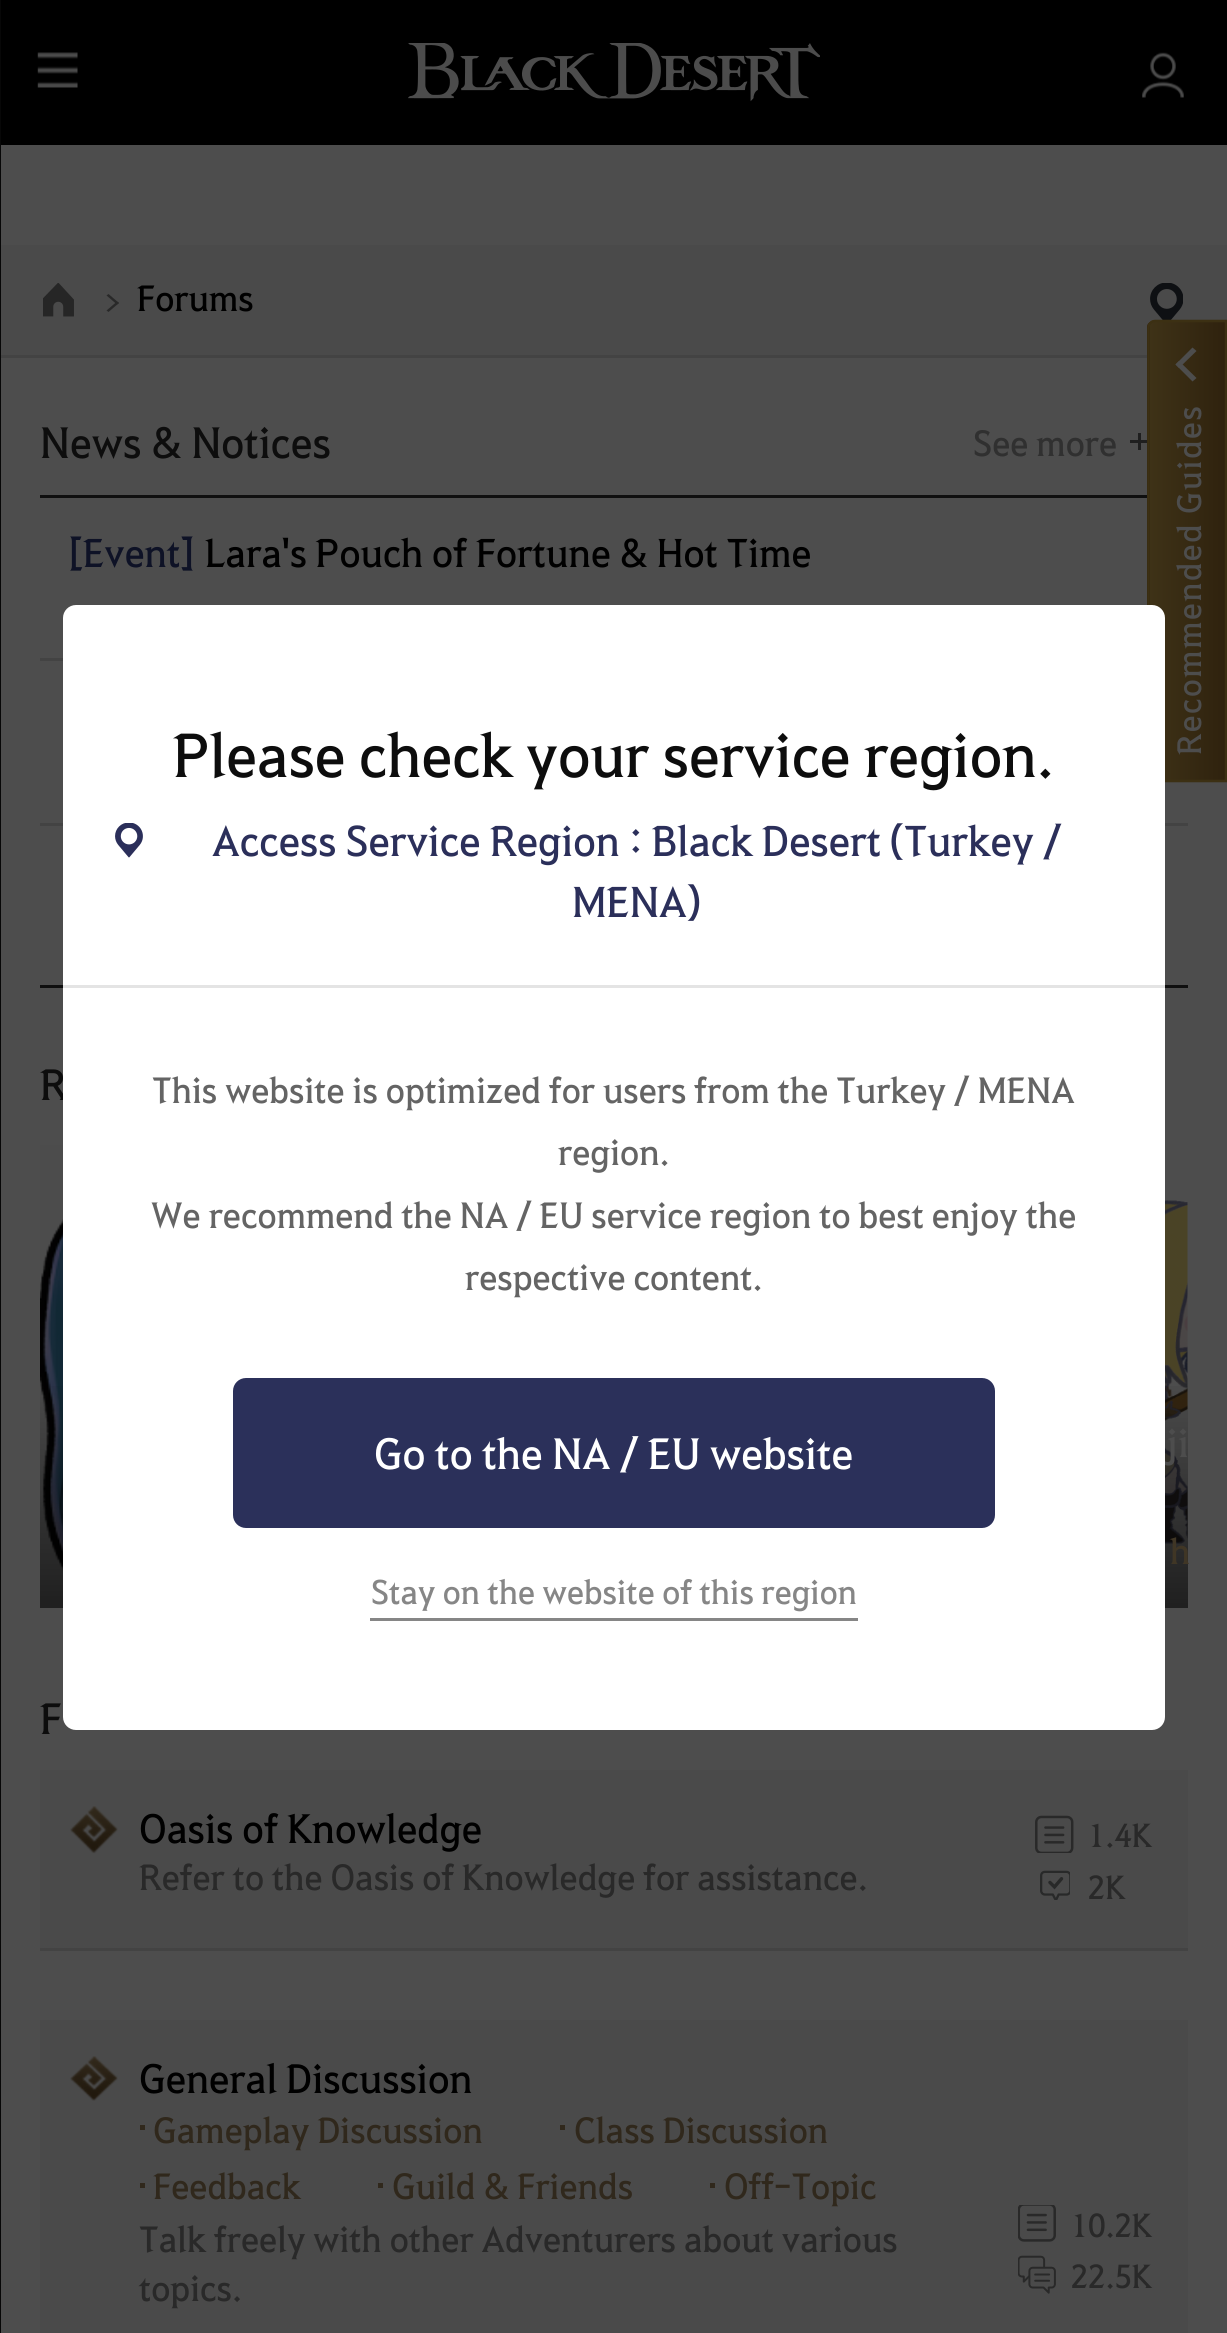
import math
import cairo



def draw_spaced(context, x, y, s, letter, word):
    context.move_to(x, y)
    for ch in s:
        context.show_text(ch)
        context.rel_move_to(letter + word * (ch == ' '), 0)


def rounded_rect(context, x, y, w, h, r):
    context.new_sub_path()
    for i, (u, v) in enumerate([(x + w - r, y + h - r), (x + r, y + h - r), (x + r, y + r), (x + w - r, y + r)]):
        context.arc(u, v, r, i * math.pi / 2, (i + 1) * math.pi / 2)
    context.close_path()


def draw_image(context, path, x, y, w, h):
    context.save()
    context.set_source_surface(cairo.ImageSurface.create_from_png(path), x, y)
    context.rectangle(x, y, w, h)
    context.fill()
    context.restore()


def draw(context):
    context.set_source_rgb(77 / 255, 77 / 255, 77 / 255)
    context.paint()
    context.set_source_rgb(0, 0, 0)
    context.rectangle(1, 0, 1226, 145)
    context.fill()
    context.set_source_rgb(67 / 255, 67 / 255, 67 / 255)
    context.rectangle(0, 355, 1147, 3)
    context.fill()
    context.set_source_rgb(7 / 255, 7 / 255, 7 / 255)
    context.rectangle(0, 0, 1, 2333)
    context.fill()
    draw_image(context, "images/1.png", 37, 52, 41, 36)
    draw_image(context, "images/2.png", 408, 43, 412, 59)
    draw_image(context, "images/3.png", 1142, 52, 42, 46)
    context.set_source_rgb(74 / 255, 74 / 255, 74 / 255)
    context.rectangle(1, 245, 1226, 110)
    context.fill()
    draw_image(context, "images/4.png", 43, 283, 31, 34)
    context.set_source_rgb(41 / 255, 41 / 255, 41 / 255)
    context.new_path()
    context.move_to(106.5, 295.5)
    context.line_to(108.5, 294)
    context.line_to(119, 303)
    context.line_to(117, 304.5)
    context.close_path()
    context.fill()
    context.new_path()
    context.move_to(106.5, 310.5)
    context.line_to(117, 301.5)
    context.line_to(119, 303)
    context.line_to(108.5, 312)
    context.close_path()
    context.fill()
    draw_image(context, "images/5.png", 1150, 283, 33, 37)
    context.set_source_rgb(31 / 255, 31 / 255, 31 / 255)
    context.rectangle(1138, 433, 3, 17)
    context.fill()
    context.rectangle(1130, 440, 18, 3)
    context.fill()
    context.set_source_rgb(15 / 255, 15 / 255, 15 / 255)
    context.rectangle(40, 495, 1107, 3)
    context.fill()
    context.set_source_rgb(67 / 255, 67 / 255, 67 / 255)
    context.rectangle(40, 658, 23, 3)
    context.fill()
    context.rectangle(40, 823, 1148, 3)
    context.fill()
    context.set_source_rgb(15 / 255, 15 / 255, 15 / 255)
    context.rectangle(40, 985, 1148, 3)
    context.fill()
    draw_image(context, "images/6.png", 40, 1145, 23, 463)
    gradient = cairo.LinearGradient(266, 1373, 266, 1608)
    gradient.add_color_stop_rgba(0, 0, 0, 0, 0)
    gradient.add_color_stop_rgba(1, 0, 0, 0, 0.59)
    context.set_source(gradient)
    context.rectangle(40, 1386, 23, 222)
    context.fill()
    draw_image(context, "images/7.png", 1165, 1200, 23, 344)
    gradient = cairo.LinearGradient(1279, 1373, 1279, 1608)
    gradient.add_color_stop_rgba(0, 0, 0, 0, 0)
    gradient.add_color_stop_rgba(1, 0, 0, 0, 0.59)
    context.set_source(gradient)
    context.rectangle(1165, 1386, 23, 222)
    context.fill()
    context.set_source_rgb(74 / 255, 74 / 255, 74 / 255)
    context.rectangle(40, 1770, 1148, 178)
    context.fill()
    context.set_source_rgb(67 / 255, 67 / 255, 67 / 255)
    context.rectangle(40, 1948, 1148, 3)
    context.fill()
    draw_image(context, "images/8.png", 70, 1806, 48, 48)
    draw_image(context, "images/9.png", 1035, 1815, 39, 38)
    draw_image(context, "images/10.png", 1040, 1870, 30, 30)
    context.set_source_rgb(74 / 255, 74 / 255, 74 / 255)
    context.rectangle(40, 2020, 1148, 313)
    context.fill()
    draw_image(context, "images/11.png", 70, 2056, 48, 45)
    context.set_source_rgb(48 / 255, 40 / 255, 28 / 255)
    context.rectangle(140, 2125, 5, 5)
    context.fill()
    context.rectangle(560, 2125, 5, 5)
    context.fill()
    context.rectangle(140, 2183, 5, 5)
    context.fill()
    context.rectangle(378, 2183, 5, 5)
    context.fill()
    context.rectangle(710, 2183, 5, 5)
    context.fill()
    draw_image(context, "images/12.png", 1018, 2205, 38, 37)
    draw_image(context, "images/13.png", 1018, 2255, 38, 39)
    gradient = cairo.LinearGradient(1075, 551, 1150, 551)
    gradient.add_color_stop_rgba(0, 62 / 255, 50 / 255, 23 / 255, 1)
    gradient.add_color_stop_rgba(1, 47 / 255, 34 / 255, 14 / 255, 1)
    context.set_source(gradient)
    context.new_path()
    context.move_to(1147, 775)
    context.curve_to(1147, 777, 1148, 779, 1150, 781)
    context.line_to(1150, 322)
    context.curve_to(1148, 323, 1147, 325, 1147, 327)
    context.close_path()
    context.fill()
    gradient = cairo.LinearGradient(1150, 551, 1225, 551)
    gradient.add_color_stop_rgba(0, 62 / 255, 50 / 255, 23 / 255, 1)
    gradient.add_color_stop_rgba(1, 47 / 255, 34 / 255, 14 / 255, 1)
    context.set_source(gradient)
    context.new_path()
    context.move_to(1152, 782)
    context.line_to(1150, 781)
    context.line_to(1150, 322)
    context.curve_to(1151, 321, 1153, 320, 1155, 320)
    context.line_to(1225, 320)
    context.line_to(1225, 782)
    context.close_path()
    context.fill()
    context.new_path()
    context.move_to(1148.5, 775)
    context.line_to(1148.5, 327.5)
    context.curve_to(1148.5, 324, 1151.5, 321, 1155, 321)
    context.line_to(1226, 321)
    context.line_to(1226, 781)
    context.line_to(1155, 781)
    context.curve_to(1151.5, 781, 1148.5, 778.5, 1148.5, 775)
    context.close_path()
    context.set_source_rgb(60 / 255, 48 / 255, 19 / 255)
    context.set_line_width(2.5)
    context.stroke()
    context.set_source_rgb(77 / 255, 77 / 255, 77 / 255)
    context.new_path()
    context.move_to(1196.5, 378)
    context.line_to(1192.5, 381.5)
    context.line_to(1175.5, 364.5)
    context.line_to(1179, 361)
    context.close_path()
    context.fill()
    context.new_path()
    context.move_to(1196.5, 351)
    context.line_to(1179, 368)
    context.line_to(1175.5, 364.5)
    context.line_to(1192.5, 347.5)
    context.close_path()
    context.fill()
    context.select_font_face("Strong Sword")
    context.set_font_size(35)
    context.set_source_rgb(0, 0, 0)
    context.move_to(137, 311)
    context.show_text("Forums")
    context.set_font_size(42)
    context.set_source_rgb(13 / 255, 13 / 255, 13 / 255)
    context.move_to(40, 458)
    context.show_text("News & Notices")
    context.set_font_size(35)
    context.set_source_rgb(48 / 255, 48 / 255, 48 / 255)
    context.move_to(973, 456)
    context.show_text("See more")
    context.set_font_size(38.5)
    context.set_source_rgb(14 / 255, 18 / 255, 38 / 255)
    context.move_to(69, 567)
    context.show_text("[Event]")
    context.set_source_rgb(0, 0, 0)
    context.move_to(205, 567)
    context.show_text("Lara's Pouch of Fortune & Hot Time")
    context.set_font_size(42)
    context.set_source_rgb(13 / 255, 13 / 255, 13 / 255)
    context.move_to(40, 1100)
    context.show_text("R")
    context.set_font_size(38.5)
    context.set_source_rgb(77 / 255, 77 / 255, 77 / 255)
    context.move_to(1167, 1457)
    context.show_text("ji")
    context.set_font_size(35)
    context.set_source_rgb(64 / 255, 54 / 255, 37 / 255)
    context.move_to(1170, 1564)
    context.show_text("h")
    context.set_font_size(42)
    context.set_source_rgb(13 / 255, 13 / 255, 13 / 255)
    context.move_to(40, 1734)
    context.show_text("F")
    context.set_font_size(39.4)
    context.set_source_rgb(0, 0, 0)
    context.move_to(139, 1843)
    context.show_text("Oasis of Knowledge")
    context.set_font_size(35)
    context.set_source_rgb(41 / 255, 41 / 255, 41 / 255)
    context.move_to(139, 1890)
    context.show_text("Refer to the Oasis of Knowledge for assistance.")
    context.set_font_size(32)
    context.move_to(1088, 1847)
    context.show_text("1.4K")
    context.move_to(1088, 1899)
    context.show_text("2K")
    context.set_font_size(39.4)
    context.set_source_rgb(0, 0, 0)
    context.move_to(139, 2093)
    context.show_text("General Discussion")
    context.set_font_size(35)
    context.set_source_rgb(48 / 255, 40 / 255, 28 / 255)
    context.move_to(153, 2143)
    context.show_text("Gameplay Discussion")
    context.move_to(574, 2143)
    context.show_text("Class Discussion")
    context.move_to(153, 2199)
    context.show_text("Feedback")
    context.move_to(392, 2199)
    context.show_text("Guild & Friends")
    context.move_to(724, 2199)
    context.show_text("Off-Topic")
    context.set_source_rgb(41 / 255, 41 / 255, 41 / 255)
    context.move_to(139, 2252)
    context.show_text("Talk freely with other Adventurers about various")
    context.move_to(139, 2301)
    context.show_text("topics.")
    context.set_font_size(32)
    context.move_to(1071, 2237)
    context.show_text("10.2K")
    context.move_to(1071, 2288)
    context.show_text("22.5K")
    context.set_source_rgb(1, 1, 1)
    rounded_rect(context, 63, 605, 1102, 1125, 13)
    context.fill()
    context.set_font_size(59.5)
    context.set_source_rgb(13 / 255, 13 / 255, 13 / 255)
    context.move_to(173, 777)
    context.show_text("Please check your service region.")
    draw_image(context, "images/14.png", 115, 823, 28, 35)
    context.set_font_size(41.3)
    context.set_source_rgb(43 / 255, 47 / 255, 90 / 255)
    context.move_to(212, 856)
    context.show_text("Access Service Region : Black Desert (Turkey /")
    context.move_to(572, 917)
    context.show_text("MENA)")
    context.set_source_rgb(228 / 255, 228 / 255, 228 / 255)
    context.rectangle(63, 985, 1102, 3)
    context.fill()
    context.set_font_size(35)
    context.set_source_rgb(100 / 255, 100 / 255, 100 / 255)
    context.move_to(152, 1103)
    context.show_text("This website is optimized for users from the Turkey / MENA")
    context.move_to(558, 1165)
    context.show_text("region.")
    context.move_to(151, 1228)
    context.show_text("We recommend the NA / EU service region to best enjoy the")
    context.move_to(465, 1290)
    context.show_text("respective content.")
    context.set_source_rgb(43 / 255, 48 / 255, 90 / 255)
    rounded_rect(context, 233, 1378, 762, 150, 13)
    context.fill()
    context.set_font_size(42)
    context.set_source_rgb(1, 1, 1)
    context.move_to(374, 1469)
    context.show_text("Go to the NA / EU website")
    context.set_source_rgb(134 / 255, 134 / 255, 134 / 255)
    context.rectangle(370, 1618, 488, 3)
    context.fill()
    context.set_font_size(32.9)
    context.move_to(371, 1604)
    context.show_text("Stay on the website of this region")
    context.set_font_size(32.5)
    context.set_source_rgb(77 / 255, 77 / 255, 77 / 255)
    context.save()
    context.translate(1201, 755)
    context.rotate(-90 * math.pi / 180)
    draw_spaced(context, 0, 0, "Recommended Guides", 1.6, 0)
    context.restore()


surface = cairo.ImageSurface(cairo.Format.RGB24, 1227, 2333)
context = cairo.Context(surface)
options = cairo.FontOptions()
options.set_hint_metrics(cairo.HintMetrics.OFF)
options.set_hint_style(cairo.HintStyle.NONE)
context.set_font_options(options)
context.set_miter_limit(4)
draw(context)
surface.write_to_png("out.png")
